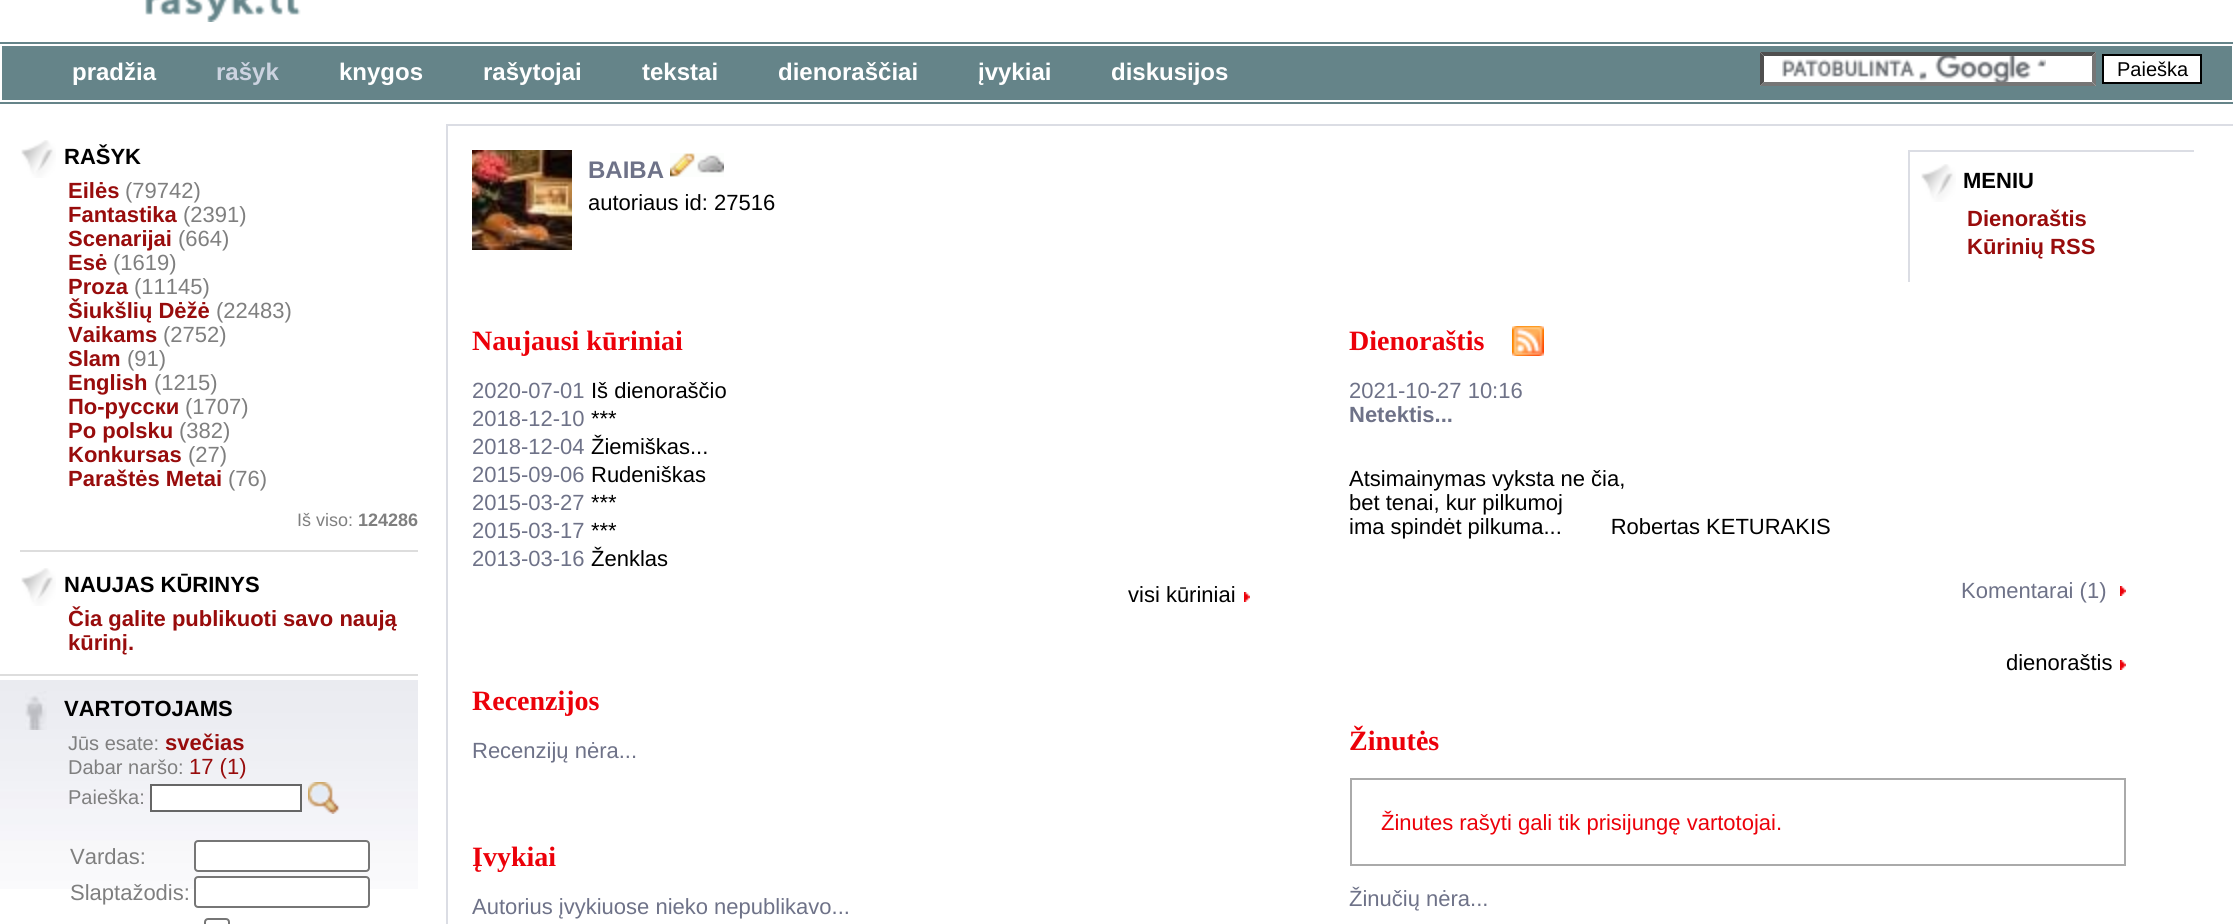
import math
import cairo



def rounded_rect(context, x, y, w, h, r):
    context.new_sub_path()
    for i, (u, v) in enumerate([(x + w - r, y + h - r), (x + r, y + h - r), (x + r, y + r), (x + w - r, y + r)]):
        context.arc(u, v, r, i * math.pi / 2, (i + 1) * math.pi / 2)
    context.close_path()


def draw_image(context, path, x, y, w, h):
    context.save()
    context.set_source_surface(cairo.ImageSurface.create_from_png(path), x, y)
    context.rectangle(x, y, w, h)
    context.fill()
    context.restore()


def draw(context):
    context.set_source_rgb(1, 1, 1)
    context.paint()
    draw_image(context, "images/1.png", 145, 0, 156, 22)
    context.set_source_rgb(101 / 255, 132 / 255, 137 / 255)
    context.rectangle(0, 42, 2233, 2)
    context.fill()
    context.rectangle(0, 102, 2233, 2)
    context.fill()
    context.rectangle(2, 46, 2230, 54)
    context.fill()
    context.set_source_rgb(1, 1, 1)
    context.rectangle(1760, 52, 336, 34)
    context.fill()
    draw_image(context, "images/2.png", 1782, 56, 264, 26)
    context.set_source_rgb(79 / 255, 79 / 255, 79 / 255)
    context.new_path()
    context.move_to(1760, 52)
    context.line_to(2096, 52)
    context.line_to(2092, 56)
    context.line_to(1764, 56)
    context.close_path()
    context.fill()
    context.set_source_rgb(118 / 255, 118 / 255, 118 / 255)
    context.new_path()
    context.move_to(2096, 52)
    context.line_to(2096, 86)
    context.line_to(2092, 82)
    context.line_to(2092, 56)
    context.close_path()
    context.fill()
    context.new_path()
    context.move_to(2096, 86)
    context.line_to(1760, 86)
    context.line_to(1764, 82)
    context.line_to(2092, 82)
    context.close_path()
    context.fill()
    context.set_source_rgb(79 / 255, 79 / 255, 79 / 255)
    context.new_path()
    context.move_to(1760, 86)
    context.line_to(1760, 52)
    context.line_to(1764, 56)
    context.line_to(1764, 82)
    context.close_path()
    context.fill()
    context.set_source_rgb(1, 1, 1)
    context.rectangle(2103, 55, 98, 28)
    context.fill_preserve()
    context.set_source_rgb(0, 0, 0)
    context.stroke()
    draw_image(context, "images/3.png", 21, 140, 35, 38)
    context.set_source_rgb(221 / 255, 221 / 255, 221 / 255)
    context.rectangle(20, 550, 398, 2)
    context.fill()
    draw_image(context, "images/3.png", 21, 568, 35, 38)
    draw_image(context, "images/4.png", 0, 680, 418, 209)
    context.rectangle(0, 674, 418, 2)
    context.fill()
    draw_image(context, "images/5.png", 25, 691, 22, 39)
    context.set_source_rgb(1, 1, 1)
    context.rectangle(151, 785, 150, 26)
    context.fill_preserve()
    context.set_source_rgb(102 / 255, 102 / 255, 102 / 255)
    context.stroke()
    draw_image(context, "images/6.png", 308, 782, 32, 32)
    context.set_source_rgb(1, 1, 1)
    rounded_rect(context, 195, 841, 174, 30, 3)
    context.fill_preserve()
    context.set_source_rgb(118 / 255, 118 / 255, 118 / 255)
    context.stroke()
    context.set_source_rgb(1, 1, 1)
    rounded_rect(context, 195, 877, 174, 30, 3)
    context.fill_preserve()
    context.set_source_rgb(118 / 255, 118 / 255, 118 / 255)
    context.stroke()
    rounded_rect(context, 205, 919, 24, 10, 3)
    context.stroke()
    context.set_source_rgb(219 / 255, 221 / 255, 228 / 255)
    context.rectangle(446, 124, 1787, 2)
    context.fill()
    context.rectangle(446, 124, 2, 800)
    context.fill()
    draw_image(context, "images/7.png", 472, 150, 100, 100)
    draw_image(context, "images/8.png", 670, 153, 54, 24)
    context.rectangle(1908, 150, 286, 2)
    context.fill()
    context.rectangle(1908, 150, 2, 132)
    context.fill()
    draw_image(context, "images/3.png", 1921, 164, 35, 38)
    draw_image(context, "images/9.png", 1244, 592, 6, 10)
    draw_image(context, "images/10.png", 1512, 326, 32, 30)
    draw_image(context, "images/9.png", 2120, 586, 6, 10)
    draw_image(context, "images/9.png", 2120, 660, 6, 10)
    context.rectangle(1351, 779, 774, 86)
    context.set_source_rgb(170 / 255, 170 / 255, 170 / 255)
    context.stroke()
    context.select_font_face("Liberation Sans", cairo.FontSlant.NORMAL, cairo.FontWeight.BOLD)
    context.set_font_size(24)
    context.set_source_rgb(1, 1, 1)
    context.move_to(72, 80)
    context.show_text("pradžia")
    context.set_source_rgb(204 / 255, 211 / 255, 224 / 255)
    context.move_to(216, 80)
    context.show_text("rašyk")
    context.set_source_rgb(1, 1, 1)
    context.move_to(339, 80)
    context.show_text("knygos")
    context.move_to(483, 80)
    context.show_text("rašytojai")
    context.move_to(642, 80)
    context.show_text("tekstai")
    context.move_to(778, 80)
    context.show_text("dienoraščiai")
    context.move_to(978, 80)
    context.show_text("įvykiai")
    context.move_to(1111, 80)
    context.show_text("diskusijos")
    context.select_font_face("Liberation Sans")
    context.set_font_size(20)
    context.set_source_rgb(0, 0, 0)
    context.move_to(2117, 76)
    context.show_text("Paieška")
    context.select_font_face("Liberation Sans", cairo.FontSlant.NORMAL, cairo.FontWeight.BOLD)
    context.set_font_size(22)
    context.move_to(64, 164)
    context.show_text("RAŠYK")
    context.set_source_rgb(152 / 255, 12 / 255, 12 / 255)
    context.move_to(68, 198)
    context.show_text("Eilės")
    context.select_font_face("Liberation Sans")
    context.set_source_rgb(127 / 255, 127 / 255, 127 / 255)
    context.move_to(125, 198)
    context.show_text("(79742)")
    context.select_font_face("Liberation Sans", cairo.FontSlant.NORMAL, cairo.FontWeight.BOLD)
    context.set_source_rgb(152 / 255, 12 / 255, 12 / 255)
    context.move_to(68, 222)
    context.show_text("Fantastika")
    context.select_font_face("Liberation Sans")
    context.set_source_rgb(127 / 255, 127 / 255, 127 / 255)
    context.move_to(183, 222)
    context.show_text("(2391)")
    context.select_font_face("Liberation Sans", cairo.FontSlant.NORMAL, cairo.FontWeight.BOLD)
    context.set_source_rgb(152 / 255, 12 / 255, 12 / 255)
    context.move_to(68, 246)
    context.show_text("Scenarijai")
    context.select_font_face("Liberation Sans")
    context.set_source_rgb(127 / 255, 127 / 255, 127 / 255)
    context.move_to(178, 246)
    context.show_text("(664)")
    context.select_font_face("Liberation Sans", cairo.FontSlant.NORMAL, cairo.FontWeight.BOLD)
    context.set_source_rgb(152 / 255, 12 / 255, 12 / 255)
    context.move_to(68, 270)
    context.show_text("Esė")
    context.select_font_face("Liberation Sans")
    context.set_source_rgb(127 / 255, 127 / 255, 127 / 255)
    context.move_to(113, 270)
    context.show_text("(1619)")
    context.select_font_face("Liberation Sans", cairo.FontSlant.NORMAL, cairo.FontWeight.BOLD)
    context.set_source_rgb(152 / 255, 12 / 255, 12 / 255)
    context.move_to(68, 294)
    context.show_text("Proza")
    context.select_font_face("Liberation Sans")
    context.set_source_rgb(127 / 255, 127 / 255, 127 / 255)
    context.move_to(134, 294)
    context.show_text("(11145)")
    context.select_font_face("Liberation Sans", cairo.FontSlant.NORMAL, cairo.FontWeight.BOLD)
    context.set_source_rgb(152 / 255, 12 / 255, 12 / 255)
    context.move_to(68, 318)
    context.show_text("Šiukšlių Dėžė")
    context.select_font_face("Liberation Sans")
    context.set_source_rgb(127 / 255, 127 / 255, 127 / 255)
    context.move_to(216, 318)
    context.show_text("(22483)")
    context.select_font_face("Liberation Sans", cairo.FontSlant.NORMAL, cairo.FontWeight.BOLD)
    context.set_source_rgb(152 / 255, 12 / 255, 12 / 255)
    context.move_to(68, 342)
    context.show_text("Vaikams")
    context.select_font_face("Liberation Sans")
    context.set_source_rgb(127 / 255, 127 / 255, 127 / 255)
    context.move_to(163, 342)
    context.show_text("(2752)")
    context.select_font_face("Liberation Sans", cairo.FontSlant.NORMAL, cairo.FontWeight.BOLD)
    context.set_source_rgb(152 / 255, 12 / 255, 12 / 255)
    context.move_to(68, 366)
    context.show_text("Slam")
    context.select_font_face("Liberation Sans")
    context.set_source_rgb(127 / 255, 127 / 255, 127 / 255)
    context.move_to(127, 366)
    context.show_text("(91)")
    context.select_font_face("Liberation Sans", cairo.FontSlant.NORMAL, cairo.FontWeight.BOLD)
    context.set_source_rgb(152 / 255, 12 / 255, 12 / 255)
    context.move_to(68, 390)
    context.show_text("English")
    context.select_font_face("Liberation Sans")
    context.set_source_rgb(127 / 255, 127 / 255, 127 / 255)
    context.move_to(154, 390)
    context.show_text("(1215)")
    context.select_font_face("Liberation Sans", cairo.FontSlant.NORMAL, cairo.FontWeight.BOLD)
    context.set_source_rgb(152 / 255, 12 / 255, 12 / 255)
    context.move_to(68, 414)
    context.show_text("По-русски")
    context.select_font_face("Liberation Sans")
    context.set_source_rgb(127 / 255, 127 / 255, 127 / 255)
    context.move_to(185, 414)
    context.show_text("(1707)")
    context.select_font_face("Liberation Sans", cairo.FontSlant.NORMAL, cairo.FontWeight.BOLD)
    context.set_source_rgb(152 / 255, 12 / 255, 12 / 255)
    context.move_to(68, 438)
    context.show_text("Po polsku")
    context.select_font_face("Liberation Sans")
    context.set_source_rgb(127 / 255, 127 / 255, 127 / 255)
    context.move_to(179, 438)
    context.show_text("(382)")
    context.select_font_face("Liberation Sans", cairo.FontSlant.NORMAL, cairo.FontWeight.BOLD)
    context.set_source_rgb(152 / 255, 12 / 255, 12 / 255)
    context.move_to(68, 462)
    context.show_text("Konkursas")
    context.select_font_face("Liberation Sans")
    context.set_source_rgb(127 / 255, 127 / 255, 127 / 255)
    context.move_to(188, 462)
    context.show_text("(27)")
    context.select_font_face("Liberation Sans", cairo.FontSlant.NORMAL, cairo.FontWeight.BOLD)
    context.set_source_rgb(152 / 255, 12 / 255, 12 / 255)
    context.move_to(68, 486)
    context.show_text("Paraštės Metai")
    context.select_font_face("Liberation Sans")
    context.set_source_rgb(127 / 255, 127 / 255, 127 / 255)
    context.move_to(228, 486)
    context.show_text("(76)")
    context.set_font_size(18)
    context.move_to(297, 526)
    context.show_text("Iš viso:")
    context.select_font_face("Liberation Sans", cairo.FontSlant.NORMAL, cairo.FontWeight.BOLD)
    context.move_to(358, 526)
    context.show_text("124286")
    context.set_font_size(22)
    context.set_source_rgb(0, 0, 0)
    context.move_to(64, 592)
    context.show_text("NAUJAS KŪRINYS")
    context.set_source_rgb(152 / 255, 12 / 255, 12 / 255)
    context.move_to(68, 626)
    context.show_text("Čia galite publikuoti savo naują")
    context.move_to(68, 650)
    context.show_text("kūrinį.")
    context.set_source_rgb(0, 0, 0)
    context.move_to(64, 716)
    context.show_text("VARTOTOJAMS")
    context.select_font_face("Liberation Sans")
    context.set_font_size(20)
    context.set_source_rgb(127 / 255, 127 / 255, 127 / 255)
    context.move_to(68, 750)
    context.show_text("Jūs esate:")
    context.select_font_face("Liberation Sans", cairo.FontSlant.NORMAL, cairo.FontWeight.BOLD)
    context.set_font_size(22)
    context.set_source_rgb(152 / 255, 12 / 255, 12 / 255)
    context.move_to(165, 750)
    context.show_text("svečias")
    context.select_font_face("Liberation Sans")
    context.set_font_size(20)
    context.set_source_rgb(127 / 255, 127 / 255, 127 / 255)
    context.move_to(68, 774)
    context.show_text("Dabar naršo:")
    context.set_font_size(22)
    context.set_source_rgb(152 / 255, 12 / 255, 12 / 255)
    context.move_to(189, 774)
    context.show_text("17 (1)")
    context.set_font_size(20)
    context.set_source_rgb(127 / 255, 127 / 255, 127 / 255)
    context.move_to(68, 804)
    context.show_text("Paieška:")
    context.set_font_size(22)
    context.move_to(70, 864)
    context.show_text("Vardas:")
    context.move_to(70, 900)
    context.show_text("Slaptažodis:")
    context.select_font_face("Liberation Sans", cairo.FontSlant.NORMAL, cairo.FontWeight.BOLD)
    context.set_font_size(24)
    context.set_source_rgb(110 / 255, 114 / 255, 136 / 255)
    context.move_to(588, 178)
    context.show_text("BAIBA")
    context.select_font_face("Liberation Sans")
    context.set_font_size(22)
    context.set_source_rgb(0, 0, 0)
    context.move_to(588, 210)
    context.show_text("autoriaus id: 27516")
    context.select_font_face("Liberation Sans", cairo.FontSlant.NORMAL, cairo.FontWeight.BOLD)
    context.move_to(1963, 188)
    context.show_text("MENIU")
    context.set_source_rgb(152 / 255, 12 / 255, 12 / 255)
    context.move_to(1967, 226)
    context.show_text("Dienoraštis")
    context.move_to(1967, 254)
    context.show_text("Kūrinių RSS")
    context.select_font_face("Liberation Serif", cairo.FontSlant.NORMAL, cairo.FontWeight.BOLD)
    context.set_font_size(28)
    context.set_source_rgb(236 / 255, 0, 9 / 255)
    context.move_to(472, 350)
    context.show_text("Naujausi kūriniai")
    context.select_font_face("Liberation Sans")
    context.set_font_size(22)
    context.set_source_rgb(110 / 255, 114 / 255, 136 / 255)
    context.move_to(472, 398)
    context.show_text("2020-07-01")
    context.set_source_rgb(0, 0, 0)
    context.move_to(591, 398)
    context.show_text("Iš dienoraščio")
    context.set_source_rgb(110 / 255, 114 / 255, 136 / 255)
    context.move_to(472, 426)
    context.show_text("2018-12-10")
    context.set_source_rgb(0, 0, 0)
    context.move_to(591, 426)
    context.show_text("***")
    context.set_source_rgb(110 / 255, 114 / 255, 136 / 255)
    context.move_to(472, 454)
    context.show_text("2018-12-04")
    context.set_source_rgb(0, 0, 0)
    context.move_to(591, 454)
    context.show_text("Žiemiškas...")
    context.set_source_rgb(110 / 255, 114 / 255, 136 / 255)
    context.move_to(472, 482)
    context.show_text("2015-09-06")
    context.set_source_rgb(0, 0, 0)
    context.move_to(591, 482)
    context.show_text("Rudeniškas")
    context.set_source_rgb(110 / 255, 114 / 255, 136 / 255)
    context.move_to(472, 510)
    context.show_text("2015-03-27")
    context.set_source_rgb(0, 0, 0)
    context.move_to(591, 510)
    context.show_text("***")
    context.set_source_rgb(110 / 255, 114 / 255, 136 / 255)
    context.move_to(472, 538)
    context.show_text("2015-03-17")
    context.set_source_rgb(0, 0, 0)
    context.move_to(591, 538)
    context.show_text("***")
    context.set_source_rgb(110 / 255, 114 / 255, 136 / 255)
    context.move_to(472, 566)
    context.show_text("2013-03-16")
    context.set_source_rgb(0, 0, 0)
    context.move_to(591, 566)
    context.show_text("Ženklas")
    context.move_to(1128, 602)
    context.show_text("visi kūriniai")
    context.select_font_face("Liberation Serif", cairo.FontSlant.NORMAL, cairo.FontWeight.BOLD)
    context.set_font_size(28)
    context.set_source_rgb(236 / 255, 0, 9 / 255)
    context.move_to(472, 710)
    context.show_text("Recenzijos")
    context.select_font_face("Liberation Sans")
    context.set_font_size(22)
    context.set_source_rgb(110 / 255, 114 / 255, 136 / 255)
    context.move_to(472, 758)
    context.show_text("Recenzijų nėra...")
    context.select_font_face("Liberation Serif", cairo.FontSlant.NORMAL, cairo.FontWeight.BOLD)
    context.set_font_size(28)
    context.set_source_rgb(236 / 255, 0, 9 / 255)
    context.move_to(472, 866)
    context.show_text("Įvykiai")
    context.select_font_face("Liberation Sans")
    context.set_font_size(22)
    context.set_source_rgb(110 / 255, 114 / 255, 136 / 255)
    context.move_to(472, 914)
    context.show_text("Autorius įvykiuose nieko nepublikavo...")
    context.select_font_face("Liberation Serif", cairo.FontSlant.NORMAL, cairo.FontWeight.BOLD)
    context.set_font_size(28)
    context.set_source_rgb(236 / 255, 0, 9 / 255)
    context.move_to(1349, 350)
    context.show_text("Dienoraštis")
    context.select_font_face("Liberation Sans")
    context.set_font_size(22)
    context.set_source_rgb(110 / 255, 114 / 255, 136 / 255)
    context.move_to(1349, 398)
    context.show_text("2021-10-27 10:16")
    context.select_font_face("Liberation Sans", cairo.FontSlant.NORMAL, cairo.FontWeight.BOLD)
    context.move_to(1349, 422)
    context.show_text("Netektis...")
    context.select_font_face("Liberation Sans")
    context.set_source_rgb(0, 0, 0)
    context.move_to(1349, 486)
    context.show_text("Atsimainymas vyksta ne čia,")
    context.move_to(1349, 510)
    context.show_text("bet tenai, kur pilkumoj")
    context.move_to(1349, 534)
    context.show_text("ima spindėt pilkuma...        Robertas KETURAKIS")
    context.set_source_rgb(110 / 255, 114 / 255, 136 / 255)
    context.move_to(1961, 598)
    context.show_text("Komentarai (1)")
    context.set_source_rgb(0, 0, 0)
    context.move_to(2006, 670)
    context.show_text("dienoraštis")
    context.select_font_face("Liberation Serif", cairo.FontSlant.NORMAL, cairo.FontWeight.BOLD)
    context.set_font_size(28)
    context.set_source_rgb(236 / 255, 0, 9 / 255)
    context.move_to(1349, 750)
    context.show_text("Žinutės")
    context.select_font_face("Liberation Sans")
    context.set_font_size(22)
    context.move_to(1381, 830)
    context.show_text("Žinutes rašyti gali tik prisijungę vartotojai.")
    context.set_source_rgb(110 / 255, 114 / 255, 136 / 255)
    context.move_to(1349, 906)
    context.show_text("Žinučių nėra...")


surface = cairo.ImageSurface(cairo.Format.RGB24, 2233, 924)
context = cairo.Context(surface)
options = cairo.FontOptions()
options.set_hint_metrics(cairo.HintMetrics.OFF)
options.set_hint_style(cairo.HintStyle.NONE)
context.set_font_options(options)
context.set_miter_limit(4)
draw(context)
surface.write_to_png("out.png")
